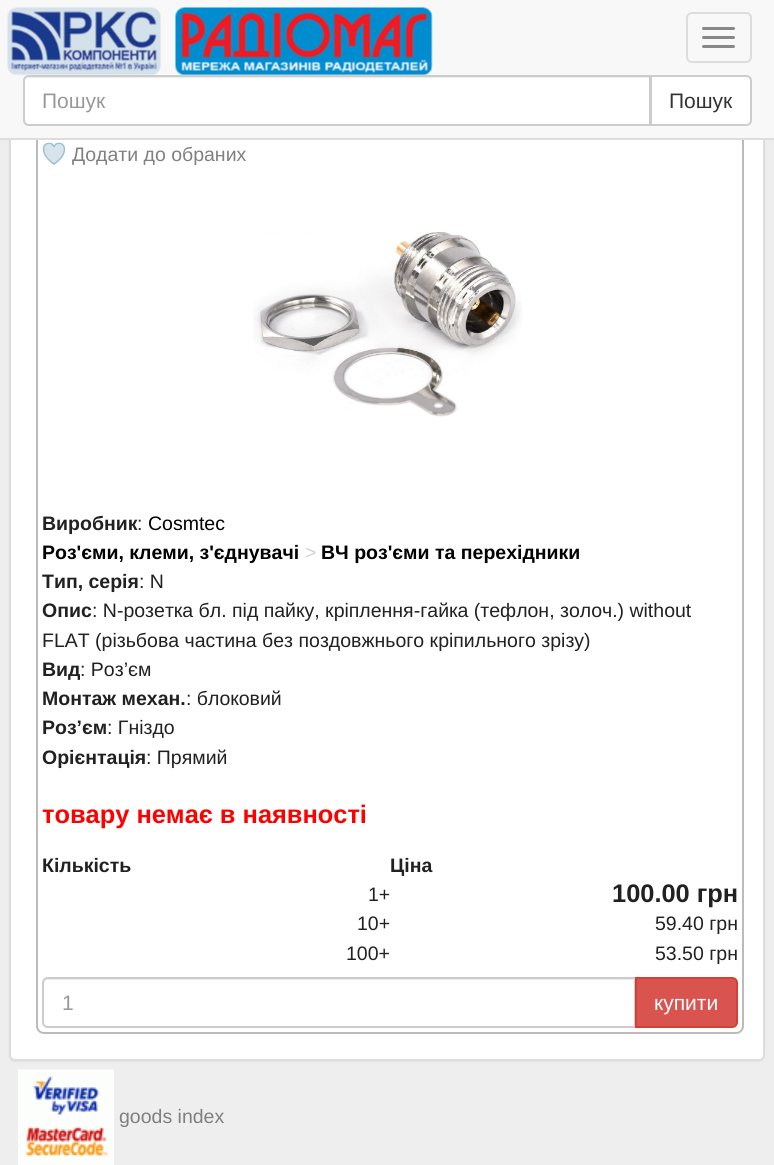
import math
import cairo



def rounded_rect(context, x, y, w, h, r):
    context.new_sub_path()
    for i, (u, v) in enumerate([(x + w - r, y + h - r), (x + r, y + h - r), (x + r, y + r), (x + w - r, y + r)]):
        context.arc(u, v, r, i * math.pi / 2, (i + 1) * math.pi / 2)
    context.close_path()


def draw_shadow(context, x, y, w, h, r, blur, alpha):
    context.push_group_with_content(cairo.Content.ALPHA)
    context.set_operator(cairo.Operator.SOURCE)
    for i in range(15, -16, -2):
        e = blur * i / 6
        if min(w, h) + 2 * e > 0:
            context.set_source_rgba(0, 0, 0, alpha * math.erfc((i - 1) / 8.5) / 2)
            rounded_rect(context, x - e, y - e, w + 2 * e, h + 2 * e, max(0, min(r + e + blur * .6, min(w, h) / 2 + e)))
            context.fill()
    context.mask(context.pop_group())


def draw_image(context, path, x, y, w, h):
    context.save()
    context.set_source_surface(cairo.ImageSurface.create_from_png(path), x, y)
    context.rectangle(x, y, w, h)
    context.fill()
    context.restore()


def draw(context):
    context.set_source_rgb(238 / 255, 238 / 255, 238 / 255)
    context.paint()
    context.set_source_rgb(0, 0, 0)
    draw_shadow(context, 9, -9, 756, 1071, 6, 1, 0.05)
    context.set_source_rgb(1, 1, 1)
    rounded_rect(context, 10, -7, 754, 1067, 5)
    context.fill_preserve()
    context.set_source_rgb(221 / 255, 221 / 255, 221 / 255)
    context.stroke()
    rounded_rect(context, 37, 75, 706, 958, 7)
    context.set_source_rgb(187 / 255, 187 / 255, 187 / 255)
    context.stroke()
    context.set_source_rgb(248 / 255, 248 / 255, 248 / 255)
    context.rectangle(0, 0, 774, 138)
    context.fill()
    context.set_source_rgb(221 / 255, 221 / 255, 221 / 255)
    context.rectangle(0, 138, 774, 2)
    context.fill()
    draw_image(context, "images/1.png", 7, 7, 154, 69)
    draw_image(context, "images/2.png", 175, 7, 258, 68)
    rounded_rect(context, 687, 13, 64, 49, 5)
    context.stroke()
    context.set_source_rgb(136 / 255, 136 / 255, 136 / 255)
    rounded_rect(context, 702, 27, 33, 3, 1.5)
    context.fill()
    rounded_rect(context, 702, 36, 33, 3, 1.5)
    context.fill()
    rounded_rect(context, 702, 45, 33, 3, 1.5)
    context.fill()
    context.set_source_rgb(1, 1, 1)
    context.new_path()
    context.move_to(29, 75)
    context.line_to(651, 75)
    context.line_to(651, 126)
    context.line_to(29, 126)
    context.curve_to(25.5, 126, 23, 123.5, 23, 120)
    context.line_to(23, 81)
    context.curve_to(23, 77.5, 25.5, 75, 29, 75)
    context.close_path()
    context.fill()
    context.set_source_rgb(236 / 255, 236 / 255, 236 / 255)
    context.new_path()
    context.move_to(28, 78)
    context.line_to(650, 78)
    context.line_to(650, 77)
    context.line_to(29, 77)
    context.curve_to(26, 77, 24, 79, 24, 82)
    context.curve_to(24, 80, 26, 78, 28, 78)
    context.close_path()
    context.fill()
    context.new_path()
    context.move_to(29, 76)
    context.line_to(650, 76)
    context.line_to(650, 125)
    context.line_to(29, 125)
    context.curve_to(26, 125, 24, 123, 24, 120)
    context.line_to(24, 81)
    context.curve_to(24, 78, 26, 76, 29, 76)
    context.close_path()
    context.set_source_rgb(204 / 255, 204 / 255, 204 / 255)
    context.stroke()
    context.set_source_rgb(1, 1, 1)
    context.new_path()
    context.move_to(651, 76)
    context.line_to(746, 76)
    context.curve_to(749, 76, 751, 78, 751, 81)
    context.line_to(751, 120)
    context.curve_to(751, 123, 749, 125, 746, 125)
    context.line_to(651, 125)
    context.close_path()
    context.fill_preserve()
    context.set_source_rgb(204 / 255, 204 / 255, 204 / 255)
    context.stroke()
    draw_image(context, "images/3.png", 42, 142, 24, 23)
    draw_image(context, "images/4.png", 253, 232, 269, 185)
    context.set_source_rgb(236 / 255, 236 / 255, 236 / 255)
    context.new_path()
    context.move_to(48, 980)
    context.line_to(634, 980)
    context.line_to(634, 1026)
    context.line_to(635, 1026)
    context.line_to(635, 978)
    context.line_to(49, 978)
    context.curve_to(46, 978, 44, 981, 44, 984)
    context.curve_to(44, 982, 46, 980, 48, 980)
    context.close_path()
    context.fill()
    context.new_path()
    context.move_to(48, 978)
    context.line_to(635, 978)
    context.line_to(635, 1027)
    context.line_to(48, 1027)
    context.curve_to(45, 1027, 43, 1025, 43, 1022)
    context.line_to(43, 983)
    context.curve_to(43, 980, 45, 978, 48, 978)
    context.close_path()
    context.set_source_rgb(204 / 255, 204 / 255, 204 / 255)
    context.stroke()
    context.set_source_rgb(217 / 255, 83 / 255, 79 / 255)
    context.new_path()
    context.move_to(636, 978)
    context.line_to(732, 978)
    context.curve_to(735, 978, 737, 980, 737, 983)
    context.line_to(737, 1022)
    context.curve_to(737, 1025, 735, 1027, 732, 1027)
    context.line_to(636, 1027)
    context.close_path()
    context.fill_preserve()
    context.set_source_rgb(212 / 255, 63 / 255, 58 / 255)
    context.stroke()
    draw_image(context, "images/5.png", 18, 1069, 96, 96)
    context.select_font_face("Liberation Sans")
    context.set_font_size(21)
    context.set_source_rgb(153 / 255, 153 / 255, 153 / 255)
    context.move_to(42, 108)
    context.show_text("Пошук")
    context.set_source_rgb(51 / 255, 51 / 255, 51 / 255)
    context.move_to(669, 108)
    context.show_text("Пошук")
    context.set_font_size(19.5)
    context.set_source_rgb(128 / 255, 128 / 255, 128 / 255)
    context.move_to(72, 161)
    context.show_text("Додати до обраних")
    context.select_font_face("Liberation Sans", cairo.FontSlant.NORMAL, cairo.FontWeight.BOLD)
    context.set_source_rgb(33 / 255, 33 / 255, 33 / 255)
    context.move_to(42, 530)
    context.show_text("Виробник")
    context.select_font_face("Liberation Sans")
    context.move_to(137, 530)
    context.show_text(":")
    context.set_source_rgb(0, 0, 0)
    context.move_to(148, 530)
    context.show_text("Cosmtec")
    context.select_font_face("Liberation Sans", cairo.FontSlant.NORMAL, cairo.FontWeight.BOLD)
    context.move_to(42, 559)
    context.show_text("Роз'єми, клеми, з'єднувачі")
    context.select_font_face("Liberation Sans")
    context.set_source_rgb(211 / 255, 211 / 255, 211 / 255)
    context.move_to(305, 559)
    context.show_text(">")
    context.select_font_face("Liberation Sans", cairo.FontSlant.NORMAL, cairo.FontWeight.BOLD)
    context.set_source_rgb(0, 0, 0)
    context.move_to(321, 559)
    context.show_text("ВЧ роз'єми та перехідники")
    context.set_source_rgb(33 / 255, 33 / 255, 33 / 255)
    context.move_to(42, 588)
    context.show_text("Тип, серія")
    context.select_font_face("Liberation Sans")
    context.move_to(139, 588)
    context.show_text(": N")
    context.select_font_face("Liberation Sans", cairo.FontSlant.NORMAL, cairo.FontWeight.BOLD)
    context.move_to(42, 617)
    context.show_text("Опис")
    context.select_font_face("Liberation Sans")
    context.move_to(92, 617)
    context.show_text(": N-розетка бл. під пайку, кріплення-гайка (тефлон, золоч.) without")
    context.move_to(42, 647)
    context.show_text("FLAT (різьбова частина без поздовжнього кріпильного зрізу)")
    context.select_font_face("Liberation Sans", cairo.FontSlant.NORMAL, cairo.FontWeight.BOLD)
    context.move_to(42, 676)
    context.show_text("Вид")
    context.select_font_face("Liberation Sans")
    context.move_to(80, 676)
    context.show_text(": Роз’єм")
    context.select_font_face("Liberation Sans", cairo.FontSlant.NORMAL, cairo.FontWeight.BOLD)
    context.move_to(42, 705)
    context.show_text("Монтаж механ.")
    context.select_font_face("Liberation Sans")
    context.move_to(186, 705)
    context.show_text(": блоковий")
    context.select_font_face("Liberation Sans", cairo.FontSlant.NORMAL, cairo.FontWeight.BOLD)
    context.move_to(42, 734)
    context.show_text("Роз’єм")
    context.select_font_face("Liberation Sans")
    context.move_to(107, 734)
    context.show_text(": Гніздо")
    context.select_font_face("Liberation Sans", cairo.FontSlant.NORMAL, cairo.FontWeight.BOLD)
    context.move_to(42, 764)
    context.show_text("Орієнтація")
    context.select_font_face("Liberation Sans")
    context.move_to(146, 764)
    context.show_text(": Прямий")
    context.select_font_face("Liberation Sans", cairo.FontSlant.NORMAL, cairo.FontWeight.BOLD)
    context.set_font_size(25.4)
    context.set_source_rgb(1, 0, 0)
    context.move_to(42, 823)
    context.show_text("товару немає в наявності")
    context.set_font_size(19.5)
    context.set_source_rgb(33 / 255, 33 / 255, 33 / 255)
    context.move_to(42, 872)
    context.show_text("Кількість")
    context.move_to(390, 872)
    context.show_text("Ціна")
    context.select_font_face("Liberation Sans")
    context.move_to(368, 901)
    context.show_text("1+")
    context.select_font_face("Liberation Sans", cairo.FontSlant.NORMAL, cairo.FontWeight.BOLD)
    context.set_font_size(25.4)
    context.move_to(612, 902)
    context.show_text("100.00 грн")
    context.select_font_face("Liberation Sans")
    context.set_font_size(19.5)
    context.move_to(357, 930)
    context.show_text("10+")
    context.move_to(655, 930)
    context.show_text("59.40 грн")
    context.move_to(346, 960)
    context.show_text("100+")
    context.move_to(655, 960)
    context.show_text("53.50 грн")
    context.set_font_size(21)
    context.set_source_rgb(153 / 255, 153 / 255, 153 / 255)
    context.move_to(62, 1010)
    context.show_text("1")
    context.set_source_rgb(1, 1, 1)
    context.move_to(654, 1010)
    context.show_text("купити")
    context.set_font_size(19.5)
    context.set_source_rgb(128 / 255, 128 / 255, 128 / 255)
    context.move_to(119, 1123)
    context.show_text("goods index")


surface = cairo.ImageSurface(cairo.Format.RGB24, 774, 1165)
context = cairo.Context(surface)
options = cairo.FontOptions()
options.set_hint_metrics(cairo.HintMetrics.OFF)
options.set_hint_style(cairo.HintStyle.NONE)
context.set_font_options(options)
context.set_miter_limit(4)
draw(context)
surface.write_to_png("out.png")
